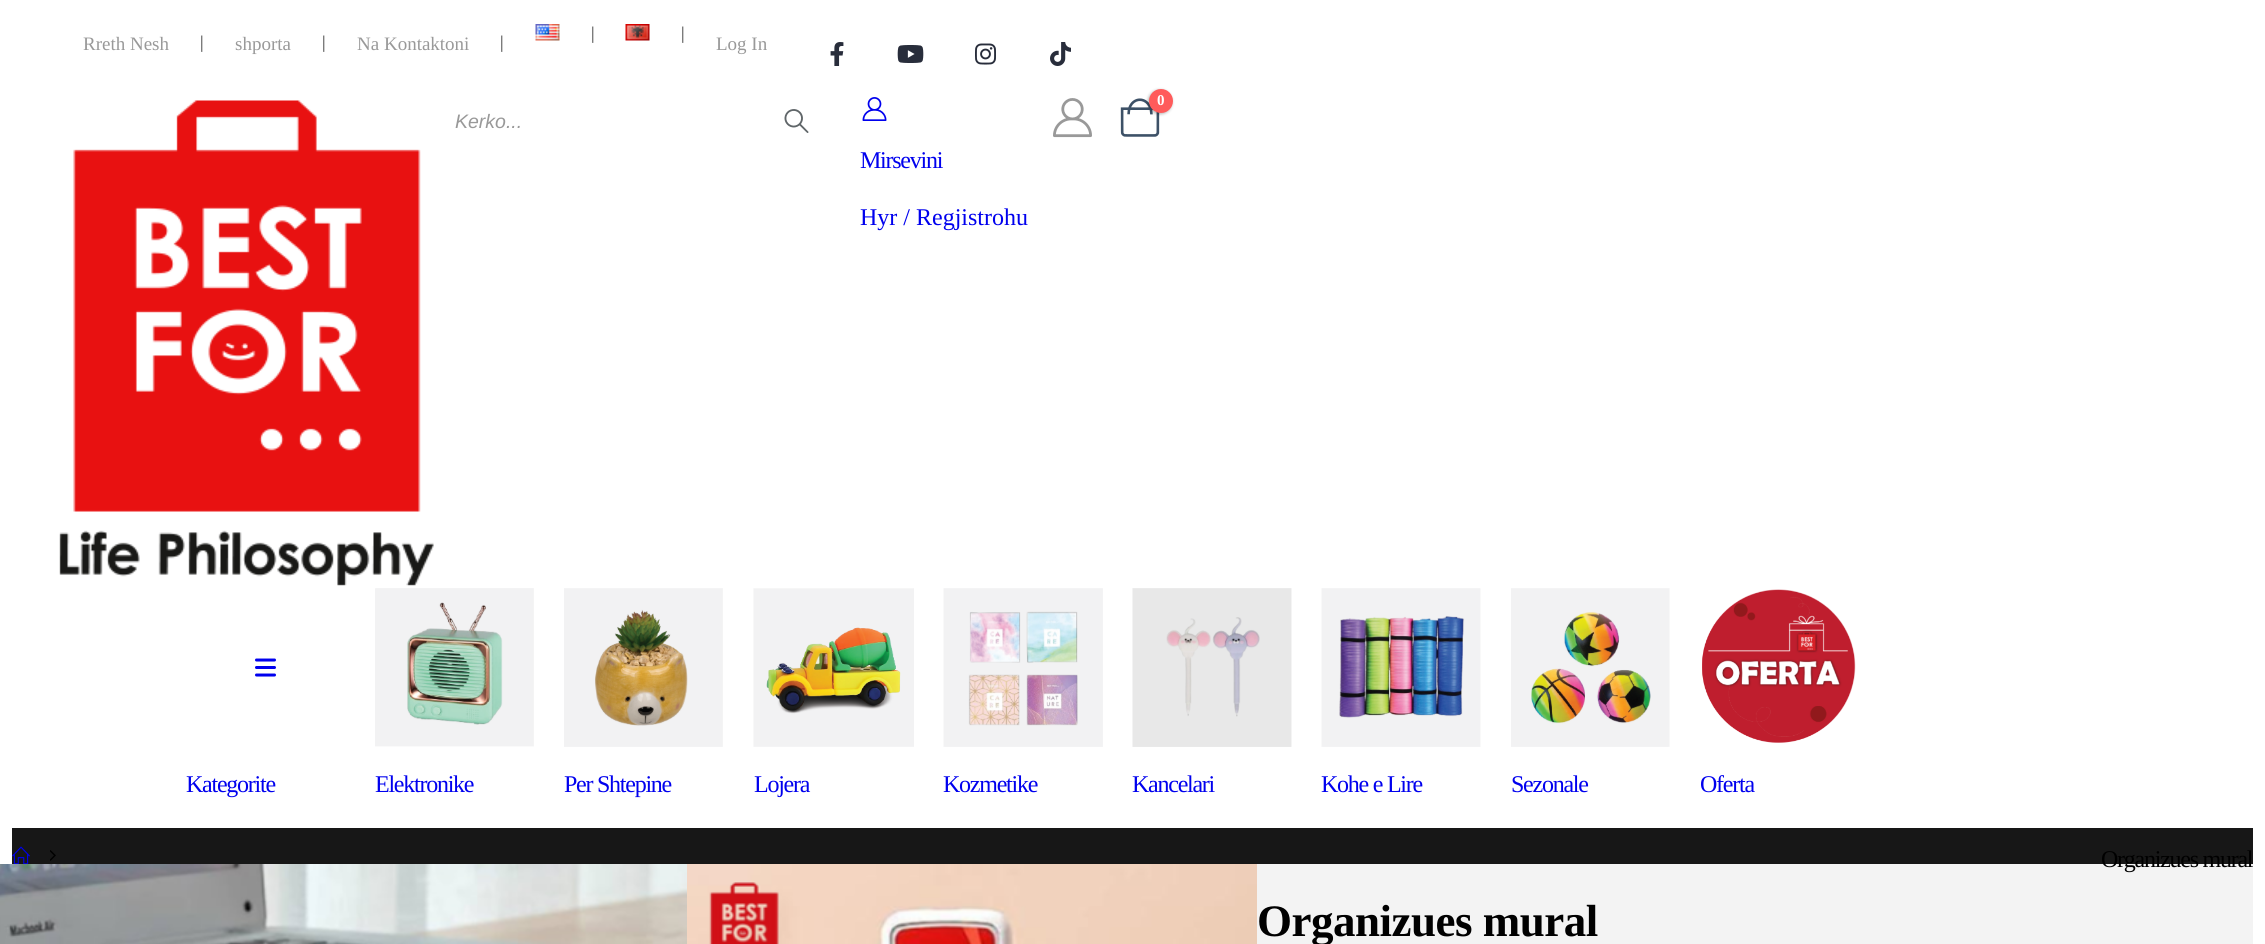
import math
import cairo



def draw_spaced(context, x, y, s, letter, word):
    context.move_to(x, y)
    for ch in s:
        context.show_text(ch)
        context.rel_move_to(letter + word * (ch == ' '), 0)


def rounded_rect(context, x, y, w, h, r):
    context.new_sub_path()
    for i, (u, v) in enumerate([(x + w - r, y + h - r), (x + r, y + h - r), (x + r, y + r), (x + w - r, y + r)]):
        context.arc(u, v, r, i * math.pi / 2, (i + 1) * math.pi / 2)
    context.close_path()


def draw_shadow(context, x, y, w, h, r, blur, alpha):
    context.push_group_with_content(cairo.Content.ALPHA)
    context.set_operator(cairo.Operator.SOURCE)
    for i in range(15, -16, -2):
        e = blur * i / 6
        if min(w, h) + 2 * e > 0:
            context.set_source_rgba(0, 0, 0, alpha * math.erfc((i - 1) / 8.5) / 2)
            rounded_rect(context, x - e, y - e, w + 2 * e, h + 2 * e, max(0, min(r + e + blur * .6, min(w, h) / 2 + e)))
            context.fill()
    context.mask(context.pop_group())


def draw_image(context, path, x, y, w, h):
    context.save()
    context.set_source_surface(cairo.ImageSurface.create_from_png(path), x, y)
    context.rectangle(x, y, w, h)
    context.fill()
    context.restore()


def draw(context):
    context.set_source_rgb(1, 1, 1)
    context.paint()
    draw_image(context, "images/1.png", 535, 24, 25, 17)
    draw_image(context, "images/2.png", 625, 24, 25, 17)
    draw_image(context, "images/3.png", 830, 42, 14, 24)
    draw_image(context, "images/4.png", 897, 45, 27, 18)
    draw_image(context, "images/5.png", 975, 43, 21, 22)
    draw_image(context, "images/6.png", 1050, 42, 21, 24)
    draw_image(context, "images/7.png", 59, 100, 375, 486)
    draw_image(context, "images/8.png", 784, 109, 25, 24)
    draw_image(context, "images/9.png", 1053, 98, 39, 40)
    draw_image(context, "images/10.png", 1120, 98, 40, 39)
    context.set_source_rgb(0, 0, 0)
    draw_shadow(context, 1148, 90, 24, 24, 12, 1.5, 0.3)
    context.set_source_rgb(1, 91 / 255, 91 / 255)
    context.arc(1161, 101, 12, 0, 2 * math.pi)
    context.fill()
    draw_image(context, "images/11.png", 862, 97, 25, 24)
    draw_image(context, "images/12.png", 255, 658, 21, 19)
    draw_image(context, "images/13.png", 375, 588, 159, 159)
    draw_image(context, "images/14.png", 564, 588, 159, 159)
    draw_image(context, "images/15.png", 753, 588, 161, 159)
    draw_image(context, "images/16.png", 943, 588, 160, 159)
    draw_image(context, "images/17.png", 1132, 588, 160, 159)
    draw_image(context, "images/18.png", 1321, 588, 160, 159)
    draw_image(context, "images/19.png", 1511, 588, 159, 159)
    draw_image(context, "images/20.png", 1702, 589, 154, 154)
    context.set_source_rgb(23 / 255, 23 / 255, 23 / 255)
    context.rectangle(12, 828, 2241, 36)
    context.fill()
    draw_image(context, "images/21.png", 12, 846, 18, 18)
    draw_image(context, "images/22.png", 50, 850, 6, 11)
    context.set_source_rgb(243 / 255, 243 / 255, 243 / 255)
    context.rectangle(1257, 864, 996, 80)
    context.fill()
    draw_image(context, "images/23.png", 0, 864, 687, 80)
    draw_image(context, "images/24.png", 687, 864, 570, 80)
    context.select_font_face("Liberation Serif")
    context.set_font_size(19)
    context.set_source_rgb(153 / 255, 153 / 255, 153 / 255)
    context.move_to(83, 50)
    context.show_text("Rreth Nesh")
    context.set_font_size(18)
    context.set_source_rgb(51 / 255, 51 / 255, 51 / 255)
    context.move_to(200, 48)
    context.show_text("|")
    context.set_font_size(19)
    context.set_source_rgb(153 / 255, 153 / 255, 153 / 255)
    context.move_to(235, 50)
    context.show_text("shporta")
    context.set_font_size(18)
    context.set_source_rgb(51 / 255, 51 / 255, 51 / 255)
    context.move_to(322, 48)
    context.show_text("|")
    context.set_font_size(19)
    context.set_source_rgb(153 / 255, 153 / 255, 153 / 255)
    context.move_to(357, 50)
    context.show_text("Na Kontaktoni")
    context.set_font_size(18)
    context.set_source_rgb(51 / 255, 51 / 255, 51 / 255)
    context.move_to(500, 48)
    context.show_text("|")
    context.move_to(591, 39)
    context.show_text("|")
    context.move_to(681, 39)
    context.show_text("|")
    context.set_font_size(19)
    context.set_source_rgb(153 / 255, 153 / 255, 153 / 255)
    context.move_to(716, 50)
    context.show_text("Log In")
    context.select_font_face("Liberation Sans", cairo.FontSlant.ITALIC)
    context.set_font_size(19.5)
    context.move_to(455, 128)
    context.show_text("Kerko...")
    context.select_font_face("Liberation Serif", cairo.FontSlant.NORMAL, cairo.FontWeight.BOLD)
    context.set_font_size(15)
    context.set_source_rgb(1, 1, 1)
    context.move_to(1157, 105)
    context.show_text("0")
    context.select_font_face("Liberation Serif")
    context.set_font_size(24)
    context.set_source_rgb(0, 0, 238 / 255)
    draw_spaced(context, 860, 168, "Mirsevini", -1.25, 0)
    context.move_to(860, 225)
    context.show_text("Hyr / Regjistrohu")
    draw_spaced(context, 186, 792, "Kategorite", -1.25, 0)
    draw_spaced(context, 375, 792, "Elektronike", -1.25, 0)
    draw_spaced(context, 564, 792, "Per Shtepine", -1.25, 0)
    draw_spaced(context, 754, 792, "Lojera", -1.25, 0)
    draw_spaced(context, 943, 792, "Kozmetike", -1.25, 0)
    draw_spaced(context, 1132, 792, "Kancelari", -1.25, 0)
    draw_spaced(context, 1321, 792, "Kohe e Lire", -1.25, 0)
    draw_spaced(context, 1511, 792, "Sezonale", -1.25, 0)
    draw_spaced(context, 1700, 792, "Oferta", -1.25, 0)
    context.set_source_rgb(0, 0, 0)
    draw_spaced(context, 2101, 867, "Organizues mural", -1.25, 0)
    context.select_font_face("Liberation Serif", cairo.FontSlant.NORMAL, cairo.FontWeight.BOLD)
    context.set_font_size(45)
    draw_spaced(context, 1257, 936, "Organizues mural", -0.5, 0)


surface = cairo.ImageSurface(cairo.Format.RGB24, 2265, 944)
context = cairo.Context(surface)
options = cairo.FontOptions()
options.set_hint_metrics(cairo.HintMetrics.OFF)
options.set_hint_style(cairo.HintStyle.NONE)
context.set_font_options(options)
context.set_miter_limit(4)
draw(context)
surface.write_to_png("out.png")
